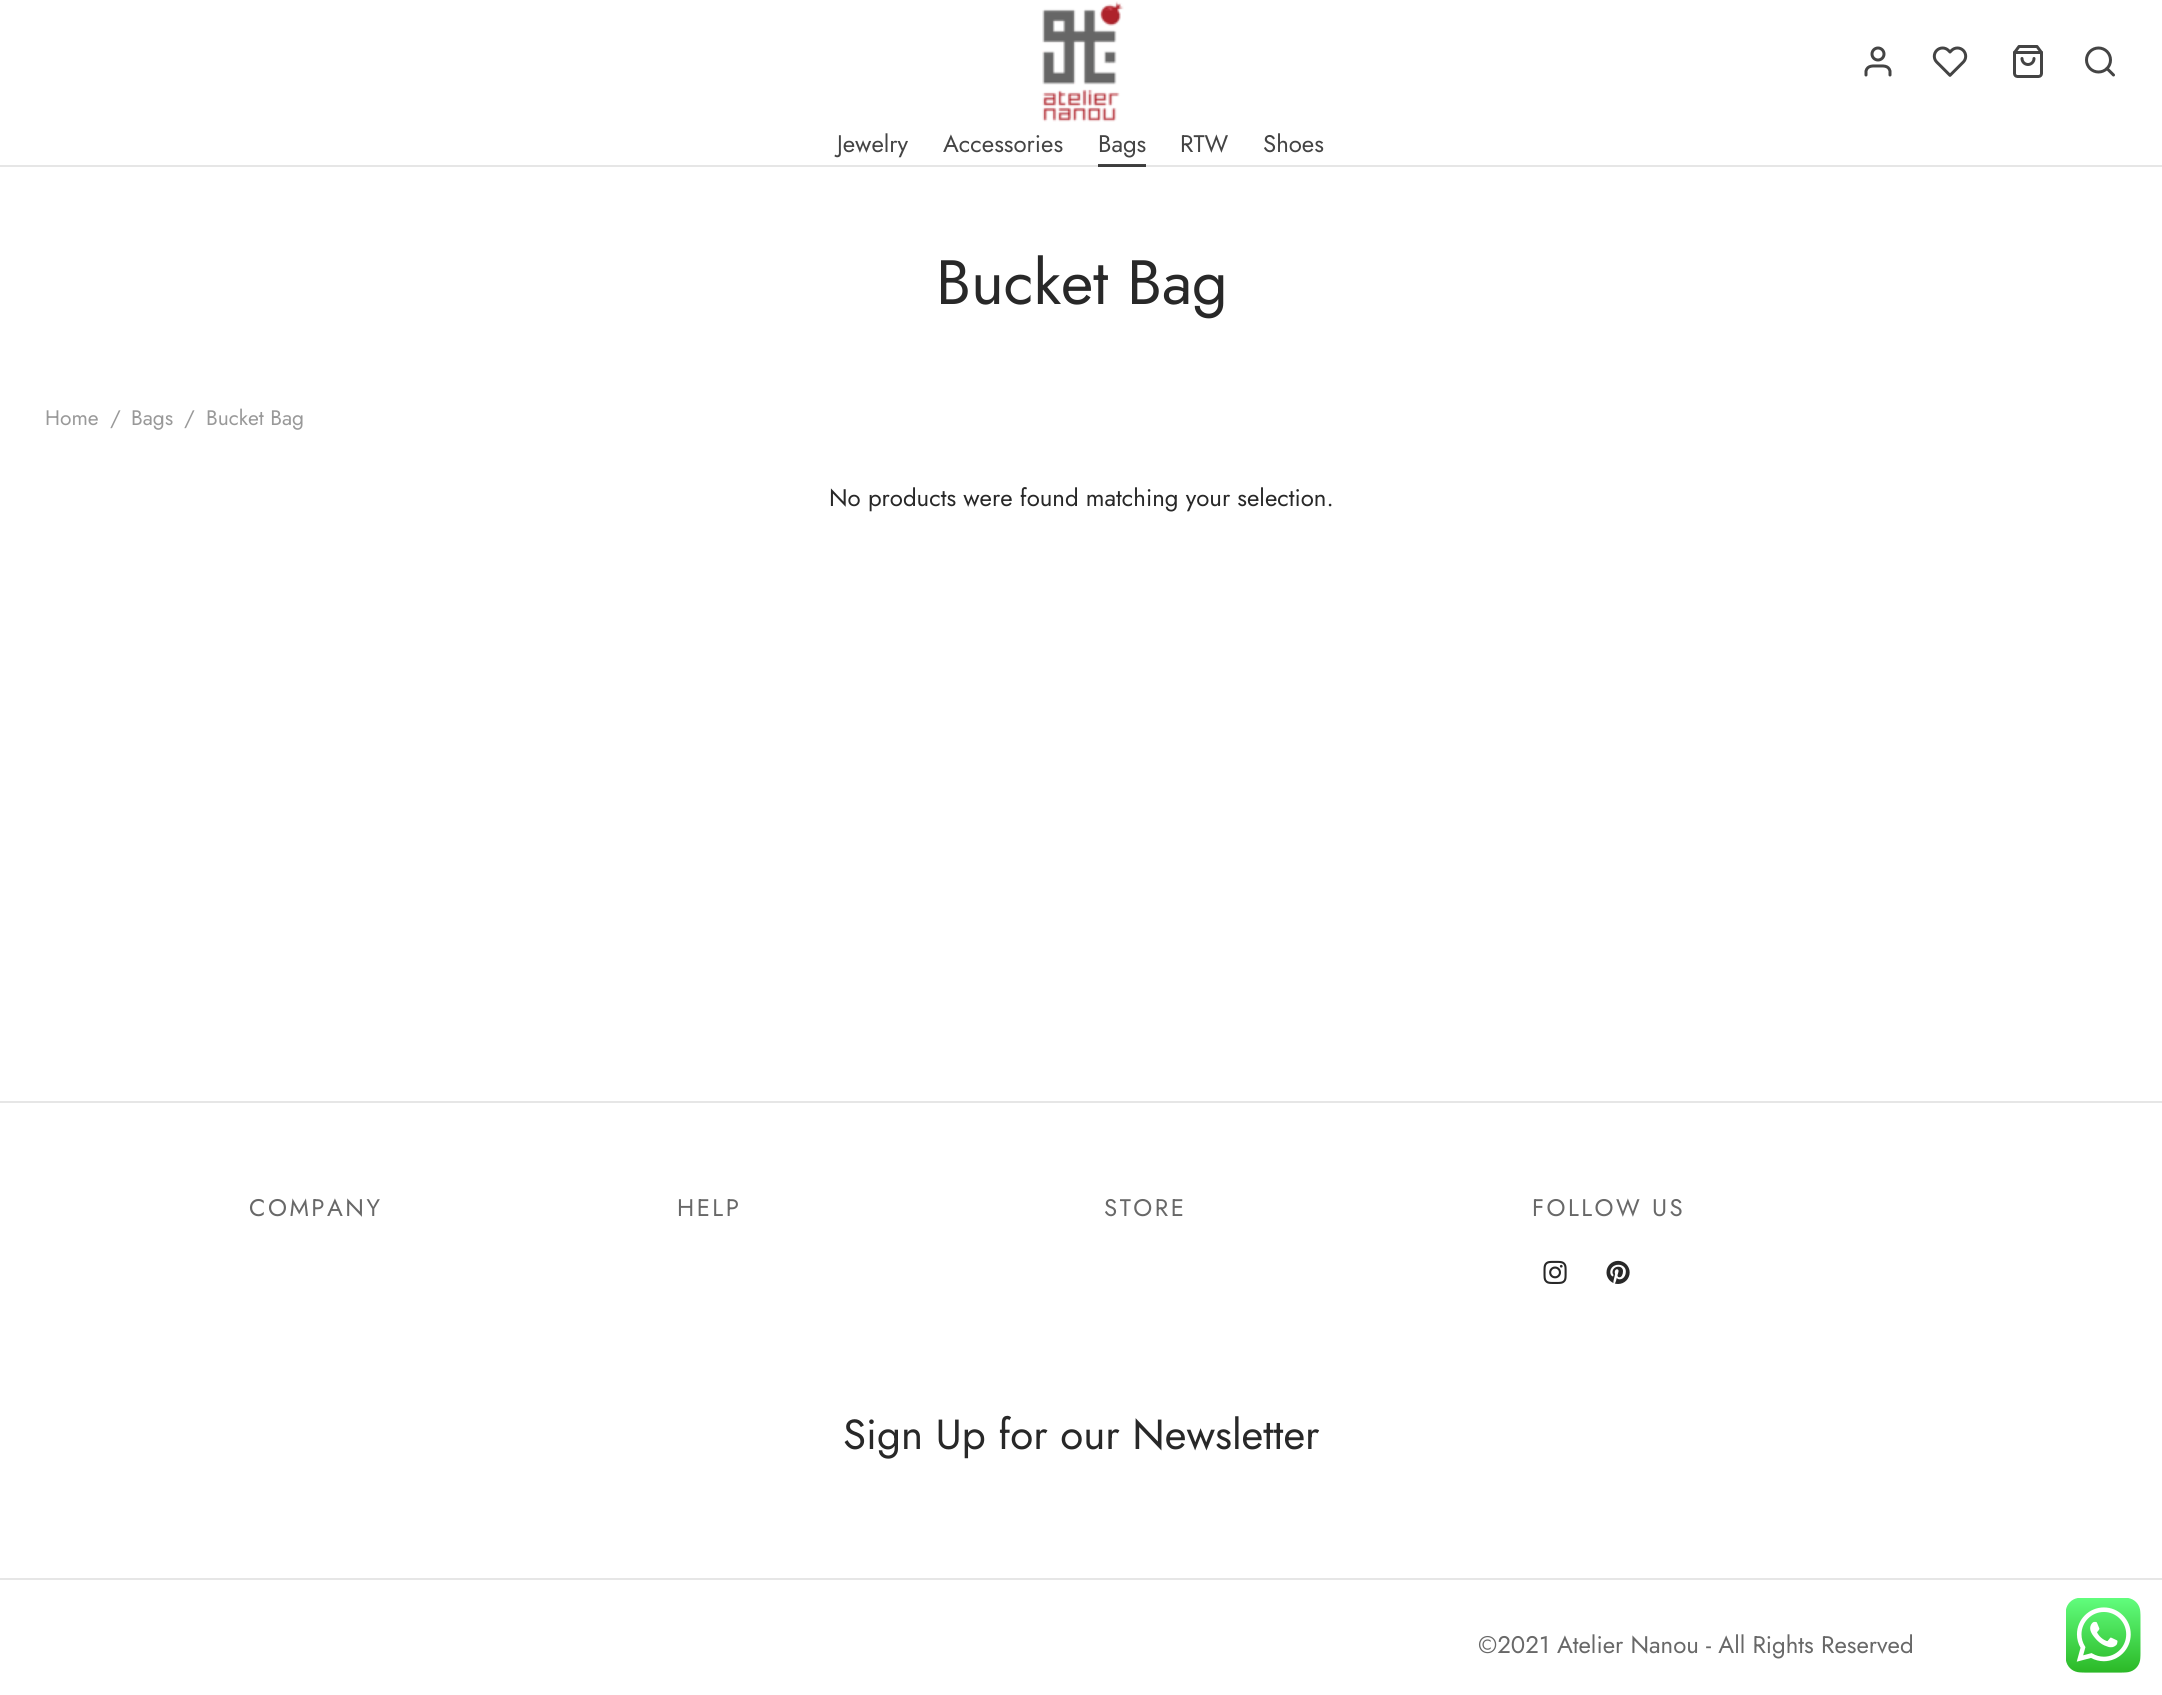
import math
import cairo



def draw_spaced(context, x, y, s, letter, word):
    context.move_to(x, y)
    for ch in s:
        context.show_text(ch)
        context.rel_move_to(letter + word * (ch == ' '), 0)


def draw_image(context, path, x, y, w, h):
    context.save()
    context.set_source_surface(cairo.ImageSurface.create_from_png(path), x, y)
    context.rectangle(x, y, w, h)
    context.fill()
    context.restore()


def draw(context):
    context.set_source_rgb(1, 1, 1)
    context.paint()
    context.set_source_rgb(230 / 255, 230 / 255, 230 / 255)
    context.rectangle(0, 165, 2162, 2)
    context.fill()
    draw_image(context, "images/1.png", 1042, 1, 82, 121)
    context.new_path()
    context.move_to(1890, 75)
    context.line_to(1890, 71)
    context.curve_to(1888.5, 65, 1882.5, 66, 1878, 66)
    context.curve_to(1873.5, 66, 1867.5, 65, 1866, 71)
    context.line_to(1866, 75)
    context.set_source_rgb(68 / 255, 68 / 255, 68 / 255)
    context.set_line_width(3)
    context.set_line_cap(cairo.LineCap.ROUND)
    context.set_line_join(cairo.LineJoin.ROUND)
    context.stroke()
    context.arc(1878, 54, 6, 0, 2 * math.pi)
    context.set_line_cap(cairo.LineCap.BUTT)
    context.set_line_join(cairo.LineJoin.MITER)
    context.stroke()
    draw_image(context, "images/2.png", 1932, 46, 36, 31)
    draw_image(context, "images/3.png", 2013, 45, 30, 33)
    context.arc(2098.5, 60, 12, 0, 2 * math.pi)
    context.stroke()
    context.new_path()
    context.move_to(2113.5, 75)
    context.line_to(2107, 68.5)
    context.set_line_cap(cairo.LineCap.ROUND)
    context.set_line_join(cairo.LineJoin.ROUND)
    context.stroke()
    context.rectangle(1098, 164, 48, 1)
    context.fill()
    context.set_source_rgb(61 / 255, 61 / 255, 61 / 255)
    context.rectangle(1098, 165, 48, 2)
    context.fill()
    context.set_source_rgb(230 / 255, 230 / 255, 230 / 255)
    context.rectangle(0, 1101, 2162, 2)
    context.fill()
    draw_image(context, "images/4.png", 1543, 1260, 24, 24)
    draw_image(context, "images/5.png", 1606, 1260, 24, 24)
    context.rectangle(0, 1578, 2162, 2)
    context.fill()
    draw_image(context, "images/6.png", 2066, 1598, 75, 75)
    context.select_font_face("Jost")
    context.set_font_size(24)
    context.set_source_rgb(68 / 255, 68 / 255, 68 / 255)
    context.move_to(837, 152)
    context.show_text("Jewelry")
    context.move_to(943, 152)
    context.show_text("Accessories")
    context.move_to(1098, 152)
    context.show_text("Bags")
    context.move_to(1180, 152)
    context.show_text("RTW")
    context.move_to(1263, 152)
    context.show_text("Shoes")
    context.set_font_size(62.5)
    context.set_source_rgb(40 / 255, 40 / 255, 40 / 255)
    context.move_to(936, 304)
    context.show_text("Bucket Bag")
    context.set_font_size(21)
    context.set_source_rgb(153 / 255, 153 / 255, 153 / 255)
    context.move_to(45, 425)
    context.show_text("Home")
    context.move_to(110, 425)
    context.show_text("/")
    context.move_to(131, 425)
    context.show_text("Bags")
    context.move_to(184, 425)
    context.show_text("/")
    context.move_to(206, 425)
    context.show_text("Bucket Bag")
    context.set_font_size(24)
    context.set_source_rgb(40 / 255, 40 / 255, 40 / 255)
    context.move_to(829, 506)
    context.show_text("No products were found matching your selection.")
    context.set_source_rgb(104 / 255, 104 / 255, 104 / 255)
    draw_spaced(context, 249, 1216, "COMPANY", 2.5, 0)
    draw_spaced(context, 677, 1216, "HELP", 2.5, 0)
    draw_spaced(context, 1104, 1216, "STORE", 2.5, 0)
    draw_spaced(context, 1532, 1216, "FOLLOW US", 2.5, 0)
    context.set_font_size(42)
    context.set_source_rgb(40 / 255, 40 / 255, 40 / 255)
    context.move_to(843, 1449)
    context.show_text("Sign Up for our Newsletter")
    context.set_font_size(24)
    context.set_source_rgb(104 / 255, 104 / 255, 104 / 255)
    context.move_to(1478, 1653)
    context.show_text("©2021 Atelier Nanou - All Rights Reserved")


surface = cairo.ImageSurface(cairo.Format.RGB24, 2162, 1695)
context = cairo.Context(surface)
options = cairo.FontOptions()
options.set_hint_metrics(cairo.HintMetrics.OFF)
options.set_hint_style(cairo.HintStyle.NONE)
context.set_font_options(options)
context.set_miter_limit(4)
draw(context)
surface.write_to_png("out.png")
